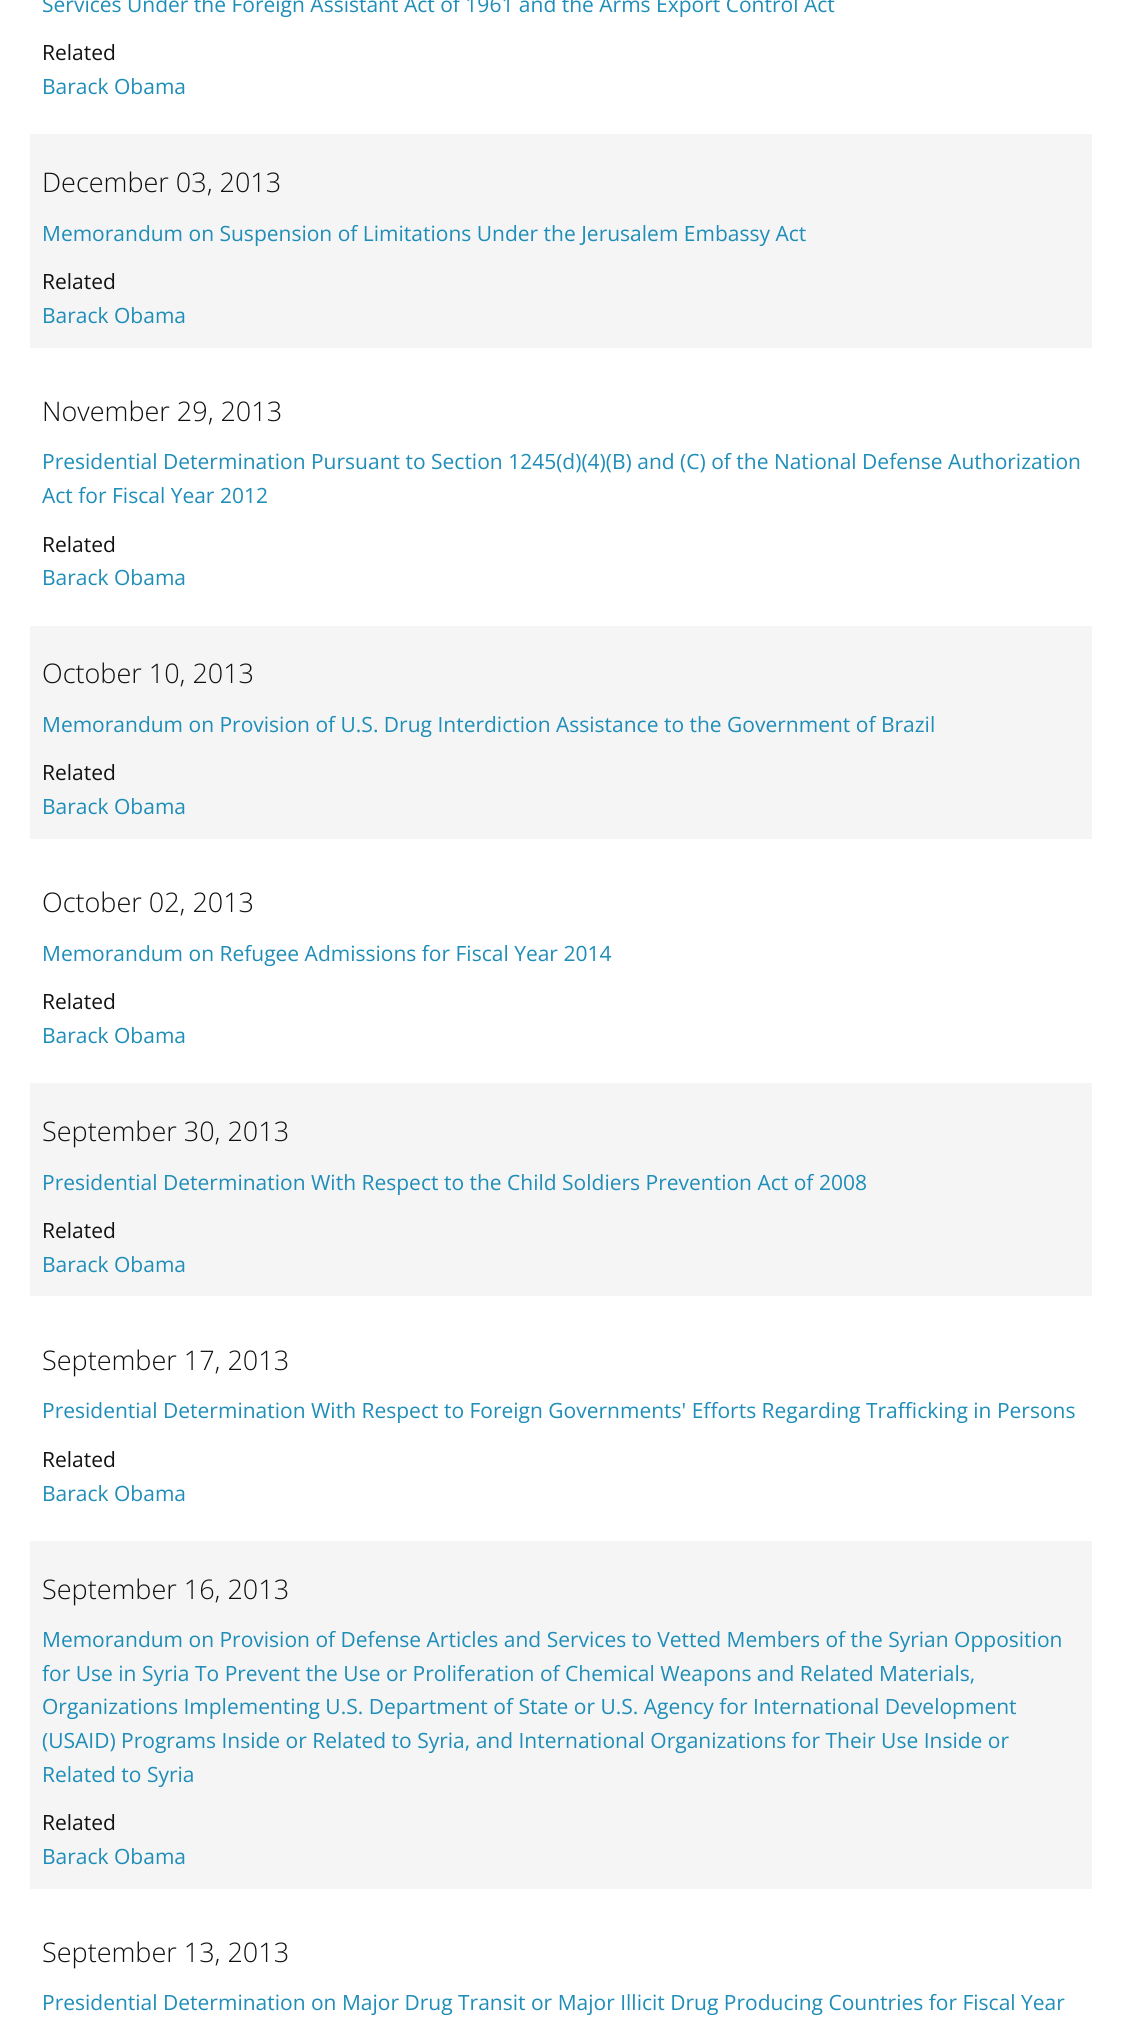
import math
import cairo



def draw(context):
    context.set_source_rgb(1, 1, 1)
    context.paint()
    context.set_source_rgb(245 / 255, 245 / 255, 245 / 255)
    context.rectangle(30, 134, 1062, 214)
    context.fill()
    context.rectangle(30, 626, 1062, 213)
    context.fill()
    context.rectangle(30, 1083, 1062, 213)
    context.fill()
    context.rectangle(30, 1541, 1062, 348)
    context.fill()
    context.select_font_face("Open Sans")
    context.set_font_size(21)
    context.set_source_rgb(30 / 255, 141 / 255, 184 / 255)
    context.move_to(42, 12)
    context.show_text("Services Under the Foreign Assistant Act of 1961 and the Arms Export Control Act")
    context.set_source_rgb(17 / 255, 17 / 255, 17 / 255)
    context.move_to(42, 60)
    context.show_text("Related")
    context.set_source_rgb(30 / 255, 141 / 255, 184 / 255)
    context.move_to(42, 94)
    context.show_text("Barack Obama")
    context.select_font_face("Open Sans Light")
    context.set_font_size(27)
    context.set_source_rgb(17 / 255, 17 / 255, 17 / 255)
    context.move_to(42, 192)
    context.show_text("December 03, 2013")
    context.select_font_face("Open Sans")
    context.set_font_size(21)
    context.set_source_rgb(30 / 255, 141 / 255, 184 / 255)
    context.move_to(42, 241)
    context.show_text("Memorandum on Suspension of Limitations Under the Jerusalem Embassy Act")
    context.set_source_rgb(17 / 255, 17 / 255, 17 / 255)
    context.move_to(42, 289)
    context.show_text("Related")
    context.set_source_rgb(30 / 255, 141 / 255, 184 / 255)
    context.move_to(42, 323)
    context.show_text("Barack Obama")
    context.select_font_face("Open Sans Light")
    context.set_font_size(27)
    context.set_source_rgb(17 / 255, 17 / 255, 17 / 255)
    context.move_to(42, 421)
    context.show_text("November 29, 2013")
    context.select_font_face("Open Sans")
    context.set_font_size(21)
    context.set_source_rgb(30 / 255, 141 / 255, 184 / 255)
    context.move_to(42, 469)
    context.show_text("Presidential Determination Pursuant to Section 1245(d)(4)(B) and (C) of the National Defense Authorization")
    context.move_to(42, 503)
    context.show_text("Act for Fiscal Year 2012")
    context.set_source_rgb(17 / 255, 17 / 255, 17 / 255)
    context.move_to(42, 552)
    context.show_text("Related")
    context.set_source_rgb(30 / 255, 141 / 255, 184 / 255)
    context.move_to(42, 585)
    context.show_text("Barack Obama")
    context.select_font_face("Open Sans Light")
    context.set_font_size(27)
    context.set_source_rgb(17 / 255, 17 / 255, 17 / 255)
    context.move_to(42, 683)
    context.show_text("October 10, 2013")
    context.select_font_face("Open Sans")
    context.set_font_size(21)
    context.set_source_rgb(30 / 255, 141 / 255, 184 / 255)
    context.move_to(42, 732)
    context.show_text("Memorandum on Provision of U.S. Drug Interdiction Assistance to the Government of Brazil")
    context.set_source_rgb(17 / 255, 17 / 255, 17 / 255)
    context.move_to(42, 780)
    context.show_text("Related")
    context.set_source_rgb(30 / 255, 141 / 255, 184 / 255)
    context.move_to(42, 814)
    context.show_text("Barack Obama")
    context.select_font_face("Open Sans Light")
    context.set_font_size(27)
    context.set_source_rgb(17 / 255, 17 / 255, 17 / 255)
    context.move_to(42, 912)
    context.show_text("October 02, 2013")
    context.select_font_face("Open Sans")
    context.set_font_size(21)
    context.set_source_rgb(30 / 255, 141 / 255, 184 / 255)
    context.move_to(42, 961)
    context.show_text("Memorandum on Refugee Admissions for Fiscal Year 2014")
    context.set_source_rgb(17 / 255, 17 / 255, 17 / 255)
    context.move_to(42, 1009)
    context.show_text("Related")
    context.set_source_rgb(30 / 255, 141 / 255, 184 / 255)
    context.move_to(42, 1043)
    context.show_text("Barack Obama")
    context.select_font_face("Open Sans Light")
    context.set_font_size(27)
    context.set_source_rgb(17 / 255, 17 / 255, 17 / 255)
    context.move_to(42, 1141)
    context.show_text("September 30, 2013")
    context.select_font_face("Open Sans")
    context.set_font_size(21)
    context.set_source_rgb(30 / 255, 141 / 255, 184 / 255)
    context.move_to(42, 1190)
    context.show_text("Presidential Determination With Respect to the Child Soldiers Prevention Act of 2008")
    context.set_source_rgb(17 / 255, 17 / 255, 17 / 255)
    context.move_to(42, 1238)
    context.show_text("Related")
    context.set_source_rgb(30 / 255, 141 / 255, 184 / 255)
    context.move_to(42, 1272)
    context.show_text("Barack Obama")
    context.select_font_face("Open Sans Light")
    context.set_font_size(27)
    context.set_source_rgb(17 / 255, 17 / 255, 17 / 255)
    context.move_to(42, 1370)
    context.show_text("September 17, 2013")
    context.select_font_face("Open Sans")
    context.set_font_size(21)
    context.set_source_rgb(30 / 255, 141 / 255, 184 / 255)
    context.move_to(42, 1418)
    context.show_text("Presidential Determination With Respect to Foreign Governments' Efforts Regarding Trafficking in Persons")
    context.set_source_rgb(17 / 255, 17 / 255, 17 / 255)
    context.move_to(42, 1467)
    context.show_text("Related")
    context.set_source_rgb(30 / 255, 141 / 255, 184 / 255)
    context.move_to(42, 1501)
    context.show_text("Barack Obama")
    context.select_font_face("Open Sans Light")
    context.set_font_size(27)
    context.set_source_rgb(17 / 255, 17 / 255, 17 / 255)
    context.move_to(42, 1599)
    context.show_text("September 16, 2013")
    context.select_font_face("Open Sans")
    context.set_font_size(21)
    context.set_source_rgb(30 / 255, 141 / 255, 184 / 255)
    context.move_to(42, 1647)
    context.show_text("Memorandum on Provision of Defense Articles and Services to Vetted Members of the Syrian Opposition")
    context.move_to(42, 1681)
    context.show_text("for Use in Syria To Prevent the Use or Proliferation of Chemical Weapons and Related Materials,")
    context.move_to(42, 1714)
    context.show_text("Organizations Implementing U.S. Department of State or U.S. Agency for International Development")
    context.move_to(42, 1748)
    context.show_text("(USAID) Programs Inside or Related to Syria, and International Organizations for Their Use Inside or")
    context.move_to(42, 1782)
    context.show_text("Related to Syria")
    context.set_source_rgb(17 / 255, 17 / 255, 17 / 255)
    context.move_to(42, 1830)
    context.show_text("Related")
    context.set_source_rgb(30 / 255, 141 / 255, 184 / 255)
    context.move_to(42, 1864)
    context.show_text("Barack Obama")
    context.select_font_face("Open Sans Light")
    context.set_font_size(27)
    context.set_source_rgb(17 / 255, 17 / 255, 17 / 255)
    context.move_to(42, 1962)
    context.show_text("September 13, 2013")
    context.select_font_face("Open Sans")
    context.set_font_size(21)
    context.set_source_rgb(30 / 255, 141 / 255, 184 / 255)
    context.move_to(42, 2010)
    context.show_text("Presidential Determination on Major Drug Transit or Major Illicit Drug Producing Countries for Fiscal Year")


surface = cairo.ImageSurface(cairo.Format.RGB24, 1122, 2022)
context = cairo.Context(surface)
options = cairo.FontOptions()
options.set_hint_metrics(cairo.HintMetrics.OFF)
options.set_hint_style(cairo.HintStyle.NONE)
context.set_font_options(options)
context.set_miter_limit(4)
draw(context)
surface.write_to_png("out.png")
